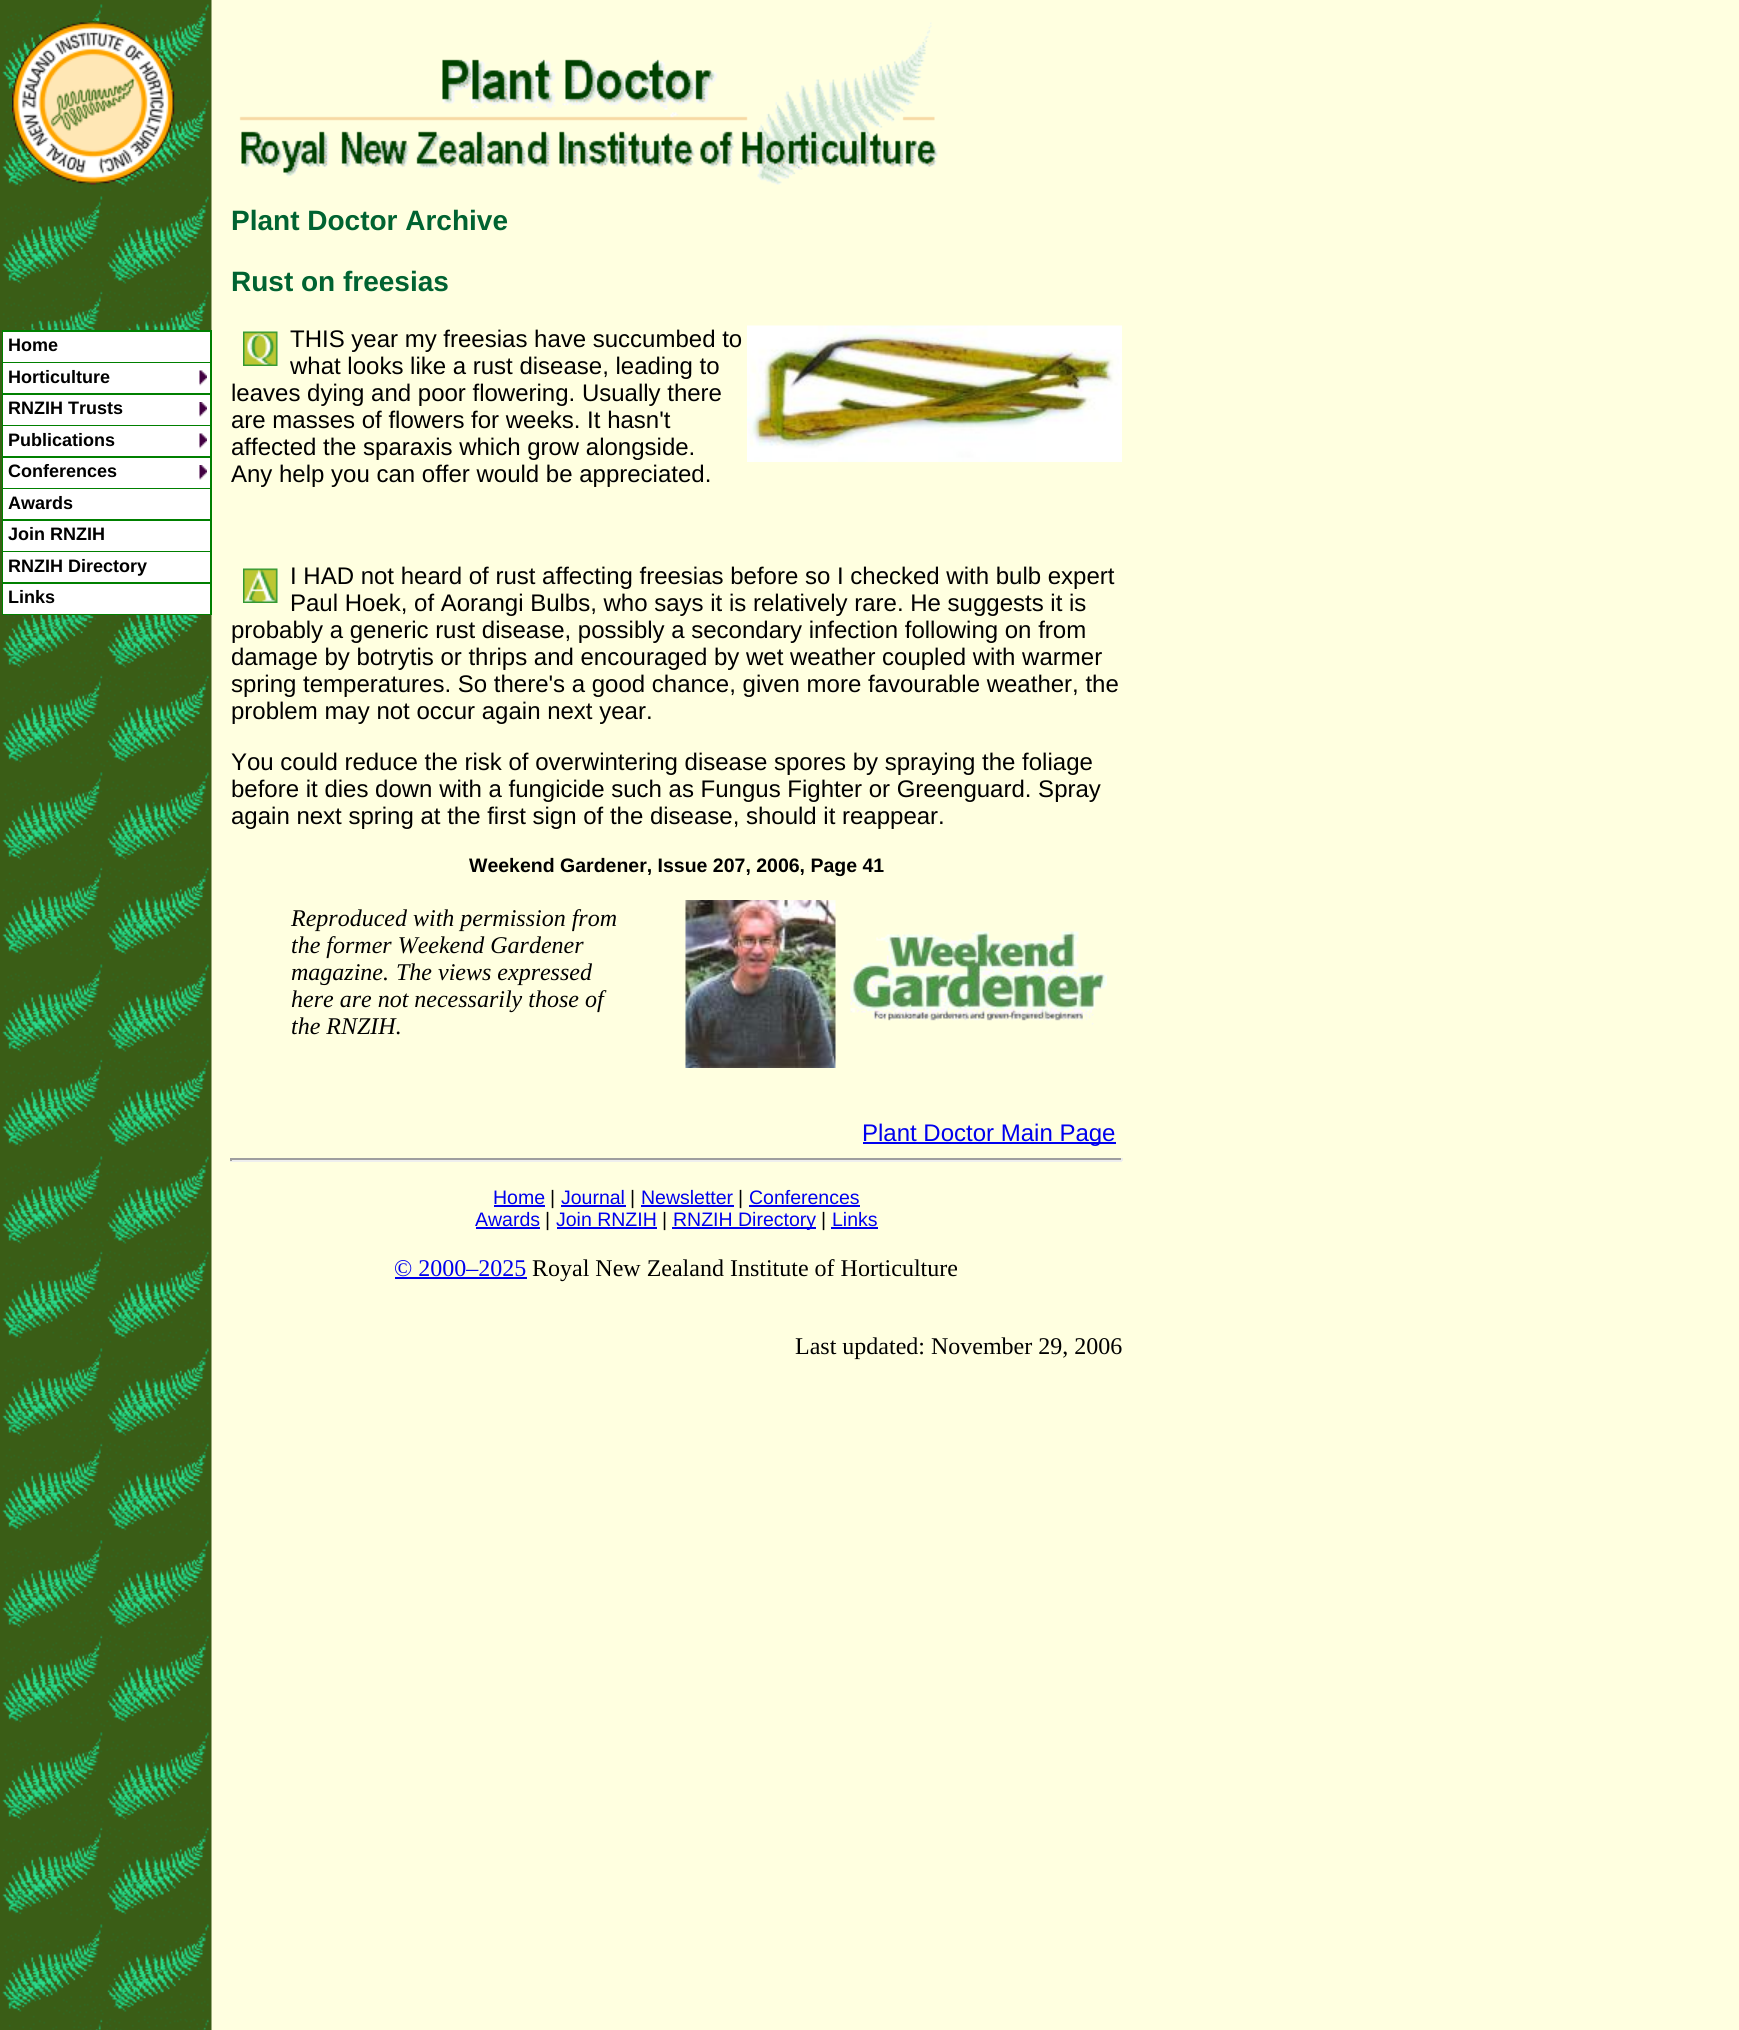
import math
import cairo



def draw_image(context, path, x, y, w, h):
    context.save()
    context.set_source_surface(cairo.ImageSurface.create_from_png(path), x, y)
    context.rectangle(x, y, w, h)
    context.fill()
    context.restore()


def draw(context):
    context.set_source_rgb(1, 1, 224 / 255)
    context.paint()
    draw_image(context, "images/1.png", 0, 0, 212, 2030)
    context.set_source_rgb(0, 128 / 255, 0)
    context.rectangle(2, 330, 210, 285)
    context.fill()
    context.set_source_rgb(1, 1, 1)
    context.rectangle(3, 332, 207, 30)
    context.fill()
    context.rectangle(3, 363, 207, 30)
    context.fill()
    draw_image(context, "images/2.png", 199, 370, 8, 16)
    context.rectangle(3, 395, 207, 30)
    context.fill()
    draw_image(context, "images/3.png", 199, 402, 8, 15)
    context.rectangle(3, 426, 207, 30)
    context.fill()
    draw_image(context, "images/2.png", 199, 433, 8, 16)
    context.rectangle(3, 458, 207, 30)
    context.fill()
    draw_image(context, "images/3.png", 199, 465, 8, 15)
    context.rectangle(3, 489, 207, 30)
    context.fill()
    context.rectangle(3, 521, 207, 30)
    context.fill()
    context.rectangle(3, 552, 207, 30)
    context.fill()
    context.rectangle(3, 584, 207, 30)
    context.fill()
    draw_image(context, "images/4.png", 12, 20, 163, 165)
    draw_image(context, "images/5.png", 239, 22, 699, 163)
    draw_image(context, "images/6.png", 243, 331, 35, 35)
    draw_image(context, "images/7.png", 747, 325, 375, 137)
    draw_image(context, "images/8.png", 243, 568, 35, 35)
    draw_image(context, "images/9.png", 685, 900, 151, 168)
    draw_image(context, "images/10.png", 850, 931, 257, 94)
    context.set_source_rgb(0, 0, 238 / 255)
    context.rectangle(863, 1142, 253, 2)
    context.fill()
    context.set_source_rgb(159 / 255, 159 / 255, 159 / 255)
    context.rectangle(230, 1158, 892, 2)
    context.fill()
    context.set_source_rgb(238 / 255, 238 / 255, 238 / 255)
    context.rectangle(1121, 1158, 2, 3)
    context.fill()
    context.rectangle(230, 1160, 892, 2)
    context.fill()
    context.set_source_rgb(159 / 255, 159 / 255, 159 / 255)
    context.rectangle(230, 1158, 2, 3)
    context.fill()
    context.set_source_rgb(0, 0, 238 / 255)
    context.rectangle(494, 1205, 51, 2)
    context.fill()
    context.rectangle(561, 1205, 65, 2)
    context.fill()
    context.rectangle(641, 1205, 93, 2)
    context.fill()
    context.rectangle(749, 1205, 111, 2)
    context.fill()
    context.rectangle(476, 1227, 64, 2)
    context.fill()
    context.rectangle(557, 1227, 100, 2)
    context.fill()
    context.rectangle(672, 1227, 144, 2)
    context.fill()
    context.rectangle(831, 1227, 47, 2)
    context.fill()
    context.rectangle(395, 1277, 132, 2)
    context.fill()
    context.select_font_face("Liberation Sans", cairo.FontSlant.NORMAL, cairo.FontWeight.BOLD)
    context.set_font_size(18)
    context.set_source_rgb(0, 0, 0)
    context.move_to(8, 351)
    context.show_text("Home")
    context.move_to(8, 383)
    context.show_text("Horticulture")
    context.move_to(8, 414)
    context.show_text("RNZIH Trusts")
    context.move_to(8, 446)
    context.show_text("Publications")
    context.move_to(8, 477)
    context.show_text("Conferences")
    context.move_to(8, 509)
    context.show_text("Awards")
    context.move_to(8, 540)
    context.show_text("Join RNZIH")
    context.move_to(8, 572)
    context.show_text("RNZIH Directory")
    context.move_to(8, 603)
    context.show_text("Links")
    context.set_font_size(28)
    context.set_source_rgb(0, 99 / 255, 49 / 255)
    context.move_to(231, 230)
    context.show_text("Plant Doctor Archive")
    context.move_to(231, 291)
    context.show_text("Rust on freesias")
    context.select_font_face("Liberation Sans")
    context.set_font_size(24)
    context.set_source_rgb(0, 0, 0)
    context.move_to(290, 347)
    context.show_text("THIS year my freesias have succumbed to")
    context.move_to(290, 374)
    context.show_text("what looks like a rust disease, leading to")
    context.move_to(231, 401)
    context.show_text("leaves dying and poor flowering. Usually there")
    context.move_to(231, 428)
    context.show_text("are masses of flowers for weeks. It hasn't")
    context.move_to(231, 455)
    context.show_text("affected the sparaxis which grow alongside.")
    context.move_to(231, 482)
    context.show_text("Any help you can offer would be appreciated.")
    context.move_to(290, 584)
    context.show_text("I HAD not heard of rust affecting freesias before so I checked with bulb expert")
    context.move_to(290, 611)
    context.show_text("Paul Hoek, of Aorangi Bulbs, who says it is relatively rare. He suggests it is")
    context.move_to(231, 638)
    context.show_text("probably a generic rust disease, possibly a secondary infection following on from")
    context.move_to(231, 665)
    context.show_text("damage by botrytis or thrips and encouraged by wet weather coupled with warmer")
    context.move_to(231, 692)
    context.show_text("spring temperatures. So there's a good chance, given more favourable weather, the")
    context.move_to(231, 719)
    context.show_text("problem may not occur again next year.")
    context.move_to(231, 770)
    context.show_text("You could reduce the risk of overwintering disease spores by spraying the foliage")
    context.move_to(231, 797)
    context.show_text("before it dies down with a fungicide such as Fungus Fighter or Greenguard. Spray")
    context.move_to(231, 824)
    context.show_text("again next spring at the first sign of the disease, should it reappear.")
    context.select_font_face("Liberation Sans", cairo.FontSlant.NORMAL, cairo.FontWeight.BOLD)
    context.set_font_size(19.5)
    context.move_to(469, 872)
    context.show_text("Weekend Gardener, Issue 207, 2006, Page 41")
    context.select_font_face("Liberation Serif", cairo.FontSlant.ITALIC)
    context.set_font_size(24)
    context.move_to(291, 926)
    context.show_text("Reproduced with permission from")
    context.move_to(291, 953)
    context.show_text("the former Weekend Gardener")
    context.move_to(291, 980)
    context.show_text("magazine.")
    context.move_to(396, 980)
    context.show_text("The views expressed")
    context.move_to(291, 1007)
    context.show_text("here are not necessarily those of")
    context.move_to(291, 1034)
    context.show_text("the RNZIH.")
    context.select_font_face("Liberation Sans")
    context.set_source_rgb(0, 0, 238 / 255)
    context.move_to(862, 1141)
    context.show_text("Plant Doctor Main Page")
    context.set_font_size(19.5)
    context.move_to(493, 1204)
    context.show_text("Home")
    context.set_source_rgb(0, 0, 0)
    context.move_to(550, 1204)
    context.show_text("|")
    context.set_source_rgb(0, 0, 238 / 255)
    context.move_to(561, 1204)
    context.show_text("Journal")
    context.set_source_rgb(0, 0, 0)
    context.move_to(630, 1204)
    context.show_text("|")
    context.set_source_rgb(0, 0, 238 / 255)
    context.move_to(641, 1204)
    context.show_text("Newsletter")
    context.set_source_rgb(0, 0, 0)
    context.move_to(738, 1204)
    context.show_text("|")
    context.set_source_rgb(0, 0, 238 / 255)
    context.move_to(749, 1204)
    context.show_text("Conferences")
    context.move_to(475, 1226)
    context.show_text("Awards")
    context.set_source_rgb(0, 0, 0)
    context.move_to(545, 1226)
    context.show_text("|")
    context.set_source_rgb(0, 0, 238 / 255)
    context.move_to(556, 1226)
    context.show_text("Join RNZIH")
    context.set_source_rgb(0, 0, 0)
    context.move_to(662, 1226)
    context.show_text("|")
    context.set_source_rgb(0, 0, 238 / 255)
    context.move_to(673, 1226)
    context.show_text("RNZIH Directory")
    context.set_source_rgb(0, 0, 0)
    context.move_to(821, 1226)
    context.show_text("|")
    context.set_source_rgb(0, 0, 238 / 255)
    context.move_to(832, 1226)
    context.show_text("Links")
    context.select_font_face("Liberation Serif")
    context.set_font_size(24)
    context.move_to(394, 1276)
    context.show_text("© 2000–2025")
    context.set_source_rgb(0, 0, 0)
    context.move_to(532, 1276)
    context.show_text("Royal New Zealand Institute of Horticulture")
    context.move_to(795, 1354)
    context.show_text("Last updated: November 29, 2006")


surface = cairo.ImageSurface(cairo.Format.RGB24, 1739, 2030)
context = cairo.Context(surface)
options = cairo.FontOptions()
options.set_hint_metrics(cairo.HintMetrics.OFF)
options.set_hint_style(cairo.HintStyle.NONE)
context.set_font_options(options)
context.set_miter_limit(4)
draw(context)
surface.write_to_png("out.png")
